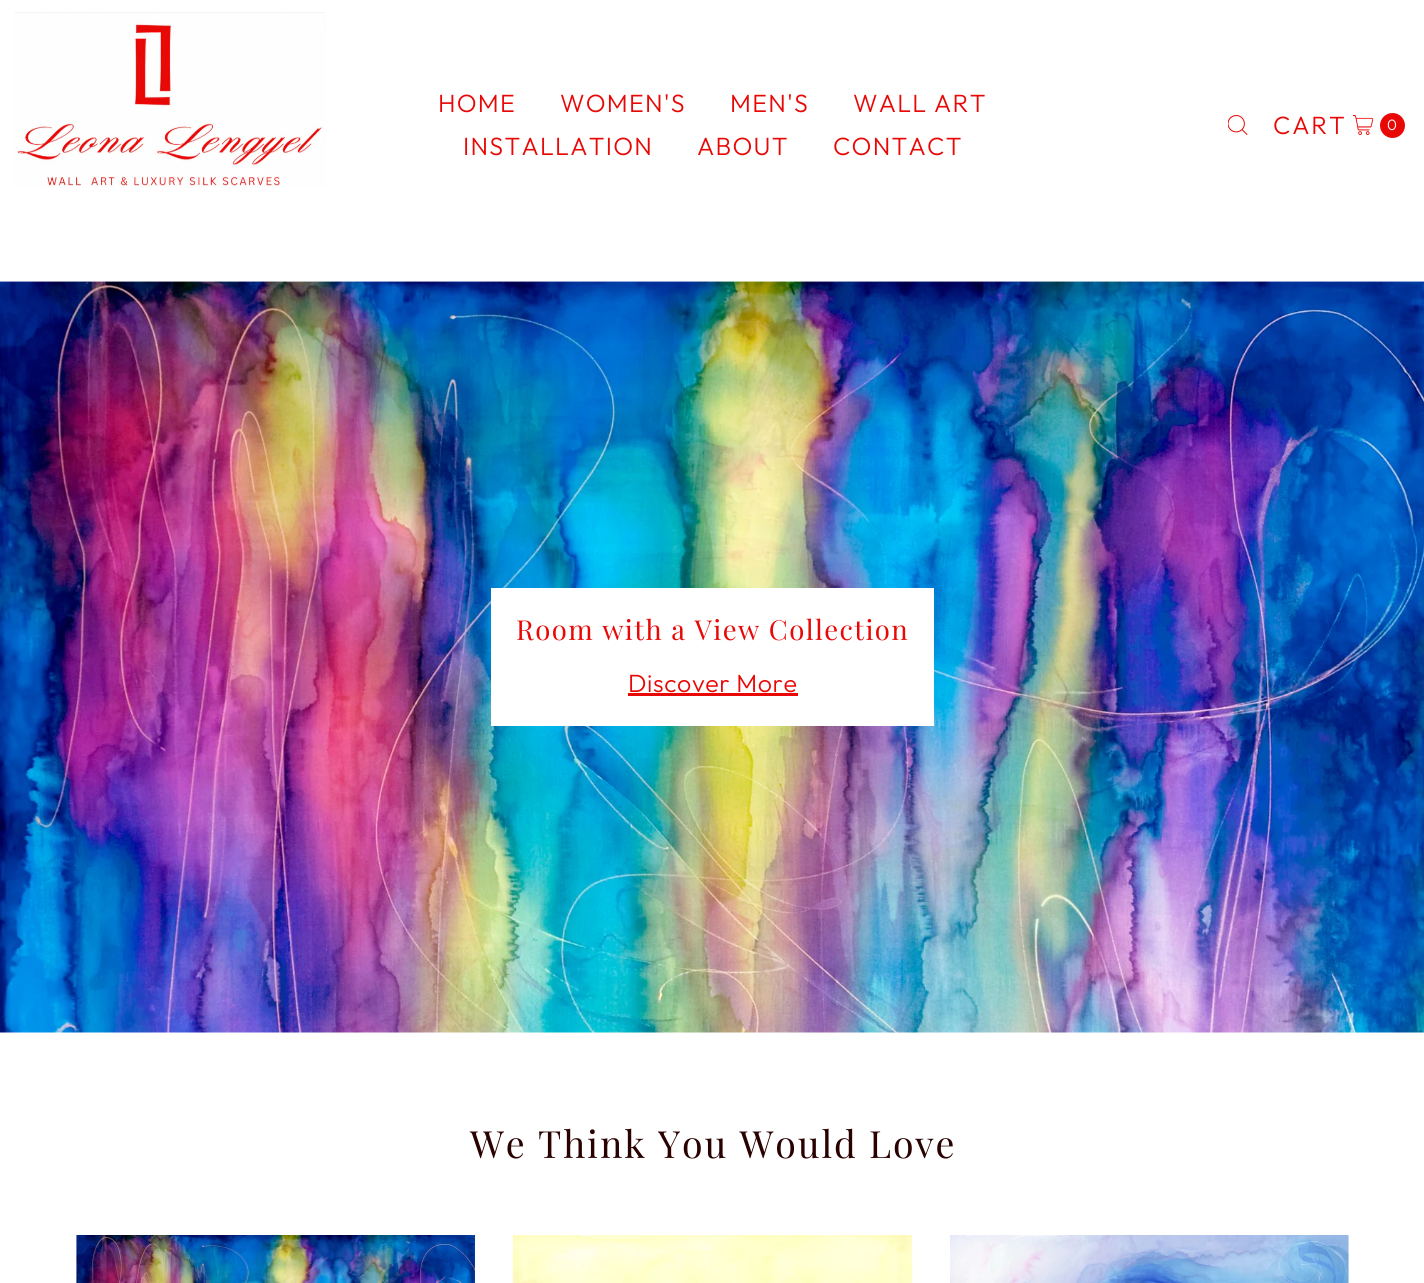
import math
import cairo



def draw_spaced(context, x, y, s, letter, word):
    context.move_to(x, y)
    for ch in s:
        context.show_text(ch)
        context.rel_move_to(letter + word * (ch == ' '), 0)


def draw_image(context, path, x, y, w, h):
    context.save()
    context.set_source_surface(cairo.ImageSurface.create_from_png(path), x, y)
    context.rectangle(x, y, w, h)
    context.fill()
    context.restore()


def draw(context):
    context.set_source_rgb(1, 1, 1)
    context.paint()
    draw_image(context, "images/1.png", 14, 12, 312, 176)
    draw_image(context, "images/2.png", 1228, 115, 20, 20)
    draw_image(context, "images/3.png", 1353, 115, 21, 20)
    context.set_source_rgb(232 / 255, 9 / 255, 7 / 255)
    context.arc(1392.5, 125.5, 12.5, 0, 2 * math.pi)
    context.fill()
    draw_image(context, "images/4.png", 0, 281, 1424, 752)
    context.set_source_rgb(1, 1, 1)
    context.rectangle(491, 588, 443, 138)
    context.fill()
    context.set_source_rgb(232 / 255, 9 / 255, 7 / 255)
    context.rectangle(628, 693, 170, 3)
    context.fill()
    draw_image(context, "images/5.png", 76, 1235, 399, 48)
    draw_image(context, "images/6.png", 512, 1235, 401, 48)
    draw_image(context, "images/7.png", 950, 1235, 399, 48)
    context.select_font_face("Outfit Light")
    context.set_font_size(25)
    draw_spaced(context, 438, 112, "HOME", 1.25, 0)
    draw_spaced(context, 560, 112, "WOMEN'S", 1.25, 0)
    draw_spaced(context, 730, 112, "MEN'S", 1.25, 0)
    draw_spaced(context, 853, 112, "WALL ART", 1.25, 0)
    draw_spaced(context, 463, 155, "INSTALLATION", 1.25, 0)
    draw_spaced(context, 697, 155, "ABOUT", 1.25, 0)
    draw_spaced(context, 833, 155, "CONTACT", 1.25, 0)
    draw_spaced(context, 1273, 134, "CART", 1.9, 0)
    context.set_font_size(15)
    context.set_source_rgb(1, 1, 1)
    context.move_to(1387, 130)
    context.show_text("0")
    context.select_font_face("Playfair Display")
    context.set_font_size(27.5)
    context.set_source_rgb(232 / 255, 9 / 255, 7 / 255)
    draw_spaced(context, 516, 640, "Room with a View Collection", 1.4, 0)
    context.select_font_face("Outfit Light")
    context.set_font_size(25)
    draw_spaced(context, 628, 692, "Discover More", 0.6, 0)
    context.select_font_face("Playfair Display")
    context.set_font_size(37.5)
    context.set_source_rgb(42 / 255, 1 / 255, 1 / 255)
    draw_spaced(context, 470, 1158, "We Think You Would Love", 1.9, 0)


surface = cairo.ImageSurface(cairo.Format.RGB24, 1424, 1283)
context = cairo.Context(surface)
options = cairo.FontOptions()
options.set_hint_metrics(cairo.HintMetrics.OFF)
options.set_hint_style(cairo.HintStyle.NONE)
context.set_font_options(options)
context.set_miter_limit(4)
draw(context)
surface.write_to_png("out.png")
